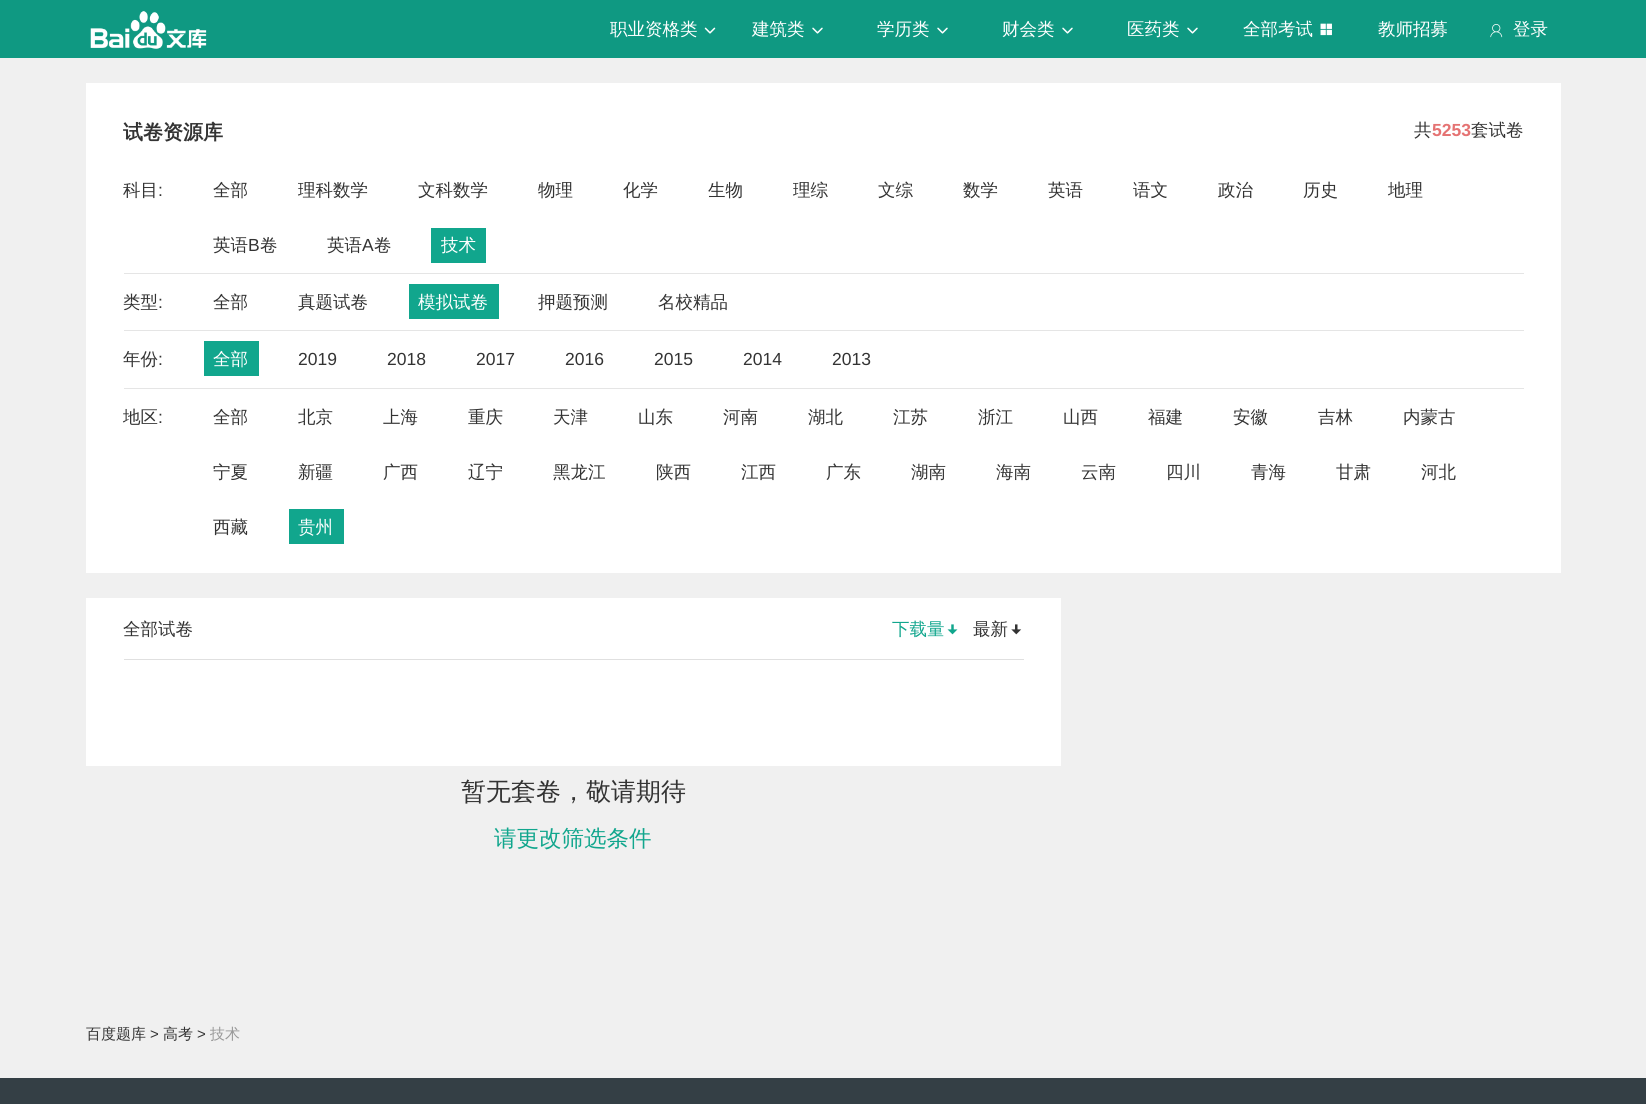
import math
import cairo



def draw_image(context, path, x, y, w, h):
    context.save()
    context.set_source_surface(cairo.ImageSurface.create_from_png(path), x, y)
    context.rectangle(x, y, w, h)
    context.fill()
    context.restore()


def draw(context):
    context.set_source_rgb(240 / 255, 240 / 255, 240 / 255)
    context.paint()
    context.set_source_rgb(15 / 255, 153 / 255, 130 / 255)
    context.rectangle(0, 0, 1646, 58)
    context.fill()
    draw_image(context, "images/1.png", 90, 11, 117, 38)
    draw_image(context, "images/2.png", 704, 27, 12, 7)
    draw_image(context, "images/3.png", 812, 27, 11, 7)
    draw_image(context, "images/3.png", 937, 27, 11, 7)
    draw_image(context, "images/3.png", 1062, 27, 11, 7)
    draw_image(context, "images/3.png", 1187, 27, 11, 7)
    draw_image(context, "images/4.png", 1320, 23, 12, 13)
    draw_image(context, "images/5.png", 1490, 24, 13, 14)
    context.set_source_rgb(1, 1, 1)
    context.rectangle(86, 83, 1475, 490)
    context.fill()
    context.set_source_rgb(229 / 255, 229 / 255, 229 / 255)
    context.rectangle(124, 273, 1400, 1)
    context.fill()
    context.set_source_rgb(17 / 255, 166 / 255, 141 / 255)
    context.rectangle(431, 228, 55, 35)
    context.fill()
    context.set_source_rgb(229 / 255, 229 / 255, 229 / 255)
    context.rectangle(124, 330, 1400, 1)
    context.fill()
    context.set_source_rgb(17 / 255, 166 / 255, 141 / 255)
    context.rectangle(409, 284, 90, 35)
    context.fill()
    context.set_source_rgb(229 / 255, 229 / 255, 229 / 255)
    context.rectangle(124, 388, 1400, 1)
    context.fill()
    context.set_source_rgb(17 / 255, 166 / 255, 141 / 255)
    context.rectangle(204, 341, 55, 35)
    context.fill()
    context.rectangle(289, 509, 55, 35)
    context.fill()
    context.set_source_rgb(1, 1, 1)
    context.rectangle(86, 598, 975, 168)
    context.fill()
    context.set_source_rgb(224 / 255, 224 / 255, 224 / 255)
    context.rectangle(124, 659, 900, 1)
    context.fill()
    draw_image(context, "images/6.png", 947, 624, 11, 11)
    draw_image(context, "images/7.png", 1011, 624, 11, 11)
    context.set_source_rgb(52 / 255, 63 / 255, 69 / 255)
    context.rectangle(0, 1078, 1646, 26)
    context.fill()
    context.select_font_face("WenQuanYi Zen Hei Medium")
    context.set_font_size(17.5)
    context.set_source_rgb(1, 1, 1)
    context.move_to(610, 35)
    context.show_text("职业资格类")
    context.move_to(752, 35)
    context.show_text("建筑类")
    context.move_to(877, 35)
    context.show_text("学历类")
    context.move_to(1002, 35)
    context.show_text("财会类")
    context.move_to(1127, 35)
    context.show_text("医药类")
    context.move_to(1243, 35)
    context.show_text("全部考试")
    context.move_to(1378, 35)
    context.show_text("教师招募")
    context.move_to(1513, 35)
    context.show_text("登录")
    context.select_font_face("WenQuanYi Zen Hei", cairo.FontSlant.NORMAL, cairo.FontWeight.BOLD)
    context.set_font_size(20)
    context.set_source_rgb(51 / 255, 51 / 255, 51 / 255)
    context.move_to(123, 139)
    context.show_text("试卷资源库")
    context.select_font_face("WenQuanYi Zen Hei Medium")
    context.set_font_size(17.5)
    context.move_to(1414, 136)
    context.show_text("共")
    context.select_font_face("Liberation Sans", cairo.FontSlant.NORMAL, cairo.FontWeight.BOLD)
    context.set_source_rgb(229 / 255, 115 / 255, 115 / 255)
    context.move_to(1432, 136)
    context.show_text("5253")
    context.select_font_face("WenQuanYi Zen Hei Medium")
    context.set_source_rgb(51 / 255, 51 / 255, 51 / 255)
    context.move_to(1471, 136)
    context.show_text("套试卷")
    context.move_to(123, 196)
    context.show_text("科目")
    context.select_font_face("Liberation Sans")
    context.move_to(158, 196)
    context.show_text(":")
    context.select_font_face("WenQuanYi Zen Hei Medium")
    context.move_to(213, 196)
    context.show_text("全部")
    context.move_to(298, 196)
    context.show_text("理科数学")
    context.move_to(418, 196)
    context.show_text("文科数学")
    context.move_to(538, 196)
    context.show_text("物理")
    context.move_to(623, 196)
    context.show_text("化学")
    context.move_to(708, 196)
    context.show_text("生物")
    context.move_to(793, 196)
    context.show_text("理综")
    context.move_to(878, 196)
    context.show_text("文综")
    context.move_to(963, 196)
    context.show_text("数学")
    context.move_to(1048, 196)
    context.show_text("英语")
    context.move_to(1133, 196)
    context.show_text("语文")
    context.move_to(1218, 196)
    context.show_text("政治")
    context.move_to(1303, 196)
    context.show_text("历史")
    context.move_to(1388, 196)
    context.show_text("地理")
    context.move_to(213, 251)
    context.show_text("英语")
    context.select_font_face("Liberation Sans")
    context.move_to(248, 251)
    context.show_text("B")
    context.select_font_face("WenQuanYi Zen Hei Medium")
    context.move_to(260, 251)
    context.show_text("卷")
    context.move_to(327, 251)
    context.show_text("英语")
    context.select_font_face("Liberation Sans")
    context.move_to(362, 251)
    context.show_text("A")
    context.select_font_face("WenQuanYi Zen Hei Medium")
    context.move_to(374, 251)
    context.show_text("卷")
    context.set_source_rgb(1, 1, 1)
    context.move_to(441, 251)
    context.show_text("技术")
    context.set_source_rgb(51 / 255, 51 / 255, 51 / 255)
    context.move_to(123, 308)
    context.show_text("类型")
    context.select_font_face("Liberation Sans")
    context.move_to(158, 308)
    context.show_text(":")
    context.select_font_face("WenQuanYi Zen Hei Medium")
    context.move_to(213, 308)
    context.show_text("全部")
    context.move_to(298, 308)
    context.show_text("真题试卷")
    context.set_source_rgb(1, 1, 1)
    context.move_to(418, 308)
    context.show_text("模拟试卷")
    context.set_source_rgb(51 / 255, 51 / 255, 51 / 255)
    context.move_to(538, 308)
    context.show_text("押题预测")
    context.move_to(658, 308)
    context.show_text("名校精品")
    context.move_to(123, 365)
    context.show_text("年份")
    context.select_font_face("Liberation Sans")
    context.move_to(158, 365)
    context.show_text(":")
    context.select_font_face("WenQuanYi Zen Hei Medium")
    context.set_source_rgb(1, 1, 1)
    context.move_to(213, 365)
    context.show_text("全部")
    context.select_font_face("Liberation Sans")
    context.set_source_rgb(51 / 255, 51 / 255, 51 / 255)
    context.move_to(298, 365)
    context.show_text("2019")
    context.move_to(387, 365)
    context.show_text("2018")
    context.move_to(476, 365)
    context.show_text("2017")
    context.move_to(565, 365)
    context.show_text("2016")
    context.move_to(654, 365)
    context.show_text("2015")
    context.move_to(743, 365)
    context.show_text("2014")
    context.move_to(832, 365)
    context.show_text("2013")
    context.select_font_face("WenQuanYi Zen Hei Medium")
    context.move_to(123, 423)
    context.show_text("地区")
    context.select_font_face("Liberation Sans")
    context.move_to(158, 423)
    context.show_text(":")
    context.select_font_face("WenQuanYi Zen Hei Medium")
    context.move_to(213, 423)
    context.show_text("全部")
    context.move_to(298, 423)
    context.show_text("北京")
    context.move_to(383, 423)
    context.show_text("上海")
    context.move_to(468, 423)
    context.show_text("重庆")
    context.move_to(553, 423)
    context.show_text("天津")
    context.move_to(638, 423)
    context.show_text("山东")
    context.move_to(723, 423)
    context.show_text("河南")
    context.move_to(808, 423)
    context.show_text("湖北")
    context.move_to(893, 423)
    context.show_text("江苏")
    context.move_to(978, 423)
    context.show_text("浙江")
    context.move_to(1063, 423)
    context.show_text("山西")
    context.move_to(1148, 423)
    context.show_text("福建")
    context.move_to(1233, 423)
    context.show_text("安徽")
    context.move_to(1318, 423)
    context.show_text("吉林")
    context.move_to(1403, 423)
    context.show_text("内蒙古")
    context.move_to(213, 478)
    context.show_text("宁夏")
    context.move_to(298, 478)
    context.show_text("新疆")
    context.move_to(383, 478)
    context.show_text("广西")
    context.move_to(468, 478)
    context.show_text("辽宁")
    context.move_to(553, 478)
    context.show_text("黑龙江")
    context.move_to(656, 478)
    context.show_text("陕西")
    context.move_to(741, 478)
    context.show_text("江西")
    context.move_to(826, 478)
    context.show_text("广东")
    context.move_to(911, 478)
    context.show_text("湖南")
    context.move_to(996, 478)
    context.show_text("海南")
    context.move_to(1081, 478)
    context.show_text("云南")
    context.move_to(1166, 478)
    context.show_text("四川")
    context.move_to(1251, 478)
    context.show_text("青海")
    context.move_to(1336, 478)
    context.show_text("甘肃")
    context.move_to(1421, 478)
    context.show_text("河北")
    context.move_to(213, 533)
    context.show_text("西藏")
    context.set_source_rgb(1, 1, 1)
    context.move_to(298, 533)
    context.show_text("贵州")
    context.set_source_rgb(51 / 255, 51 / 255, 51 / 255)
    context.move_to(123, 635)
    context.show_text("全部试卷")
    context.set_source_rgb(17 / 255, 166 / 255, 141 / 255)
    context.move_to(892, 635)
    context.show_text("下载量")
    context.set_source_rgb(51 / 255, 51 / 255, 51 / 255)
    context.move_to(973, 635)
    context.show_text("最新")
    context.set_font_size(25)
    context.move_to(461, 800)
    context.show_text("暂无套卷，敬请期待")
    context.set_font_size(22.5)
    context.set_source_rgb(17 / 255, 166 / 255, 141 / 255)
    context.move_to(494, 846)
    context.show_text("请更改筛选条件")
    context.set_font_size(15)
    context.set_source_rgb(51 / 255, 51 / 255, 51 / 255)
    context.move_to(86, 1039)
    context.show_text("百度题库")
    context.select_font_face("Liberation Sans")
    context.move_to(150, 1039)
    context.show_text(">")
    context.select_font_face("WenQuanYi Zen Hei Medium")
    context.move_to(163, 1039)
    context.show_text("高考")
    context.select_font_face("Liberation Sans")
    context.move_to(197, 1039)
    context.show_text(">")
    context.select_font_face("WenQuanYi Zen Hei Medium")
    context.set_source_rgb(153 / 255, 153 / 255, 153 / 255)
    context.move_to(210, 1039)
    context.show_text("技术")


surface = cairo.ImageSurface(cairo.Format.RGB24, 1646, 1104)
context = cairo.Context(surface)
options = cairo.FontOptions()
options.set_hint_metrics(cairo.HintMetrics.OFF)
options.set_hint_style(cairo.HintStyle.NONE)
context.set_font_options(options)
context.set_miter_limit(4)
draw(context)
surface.write_to_png("out.png")
